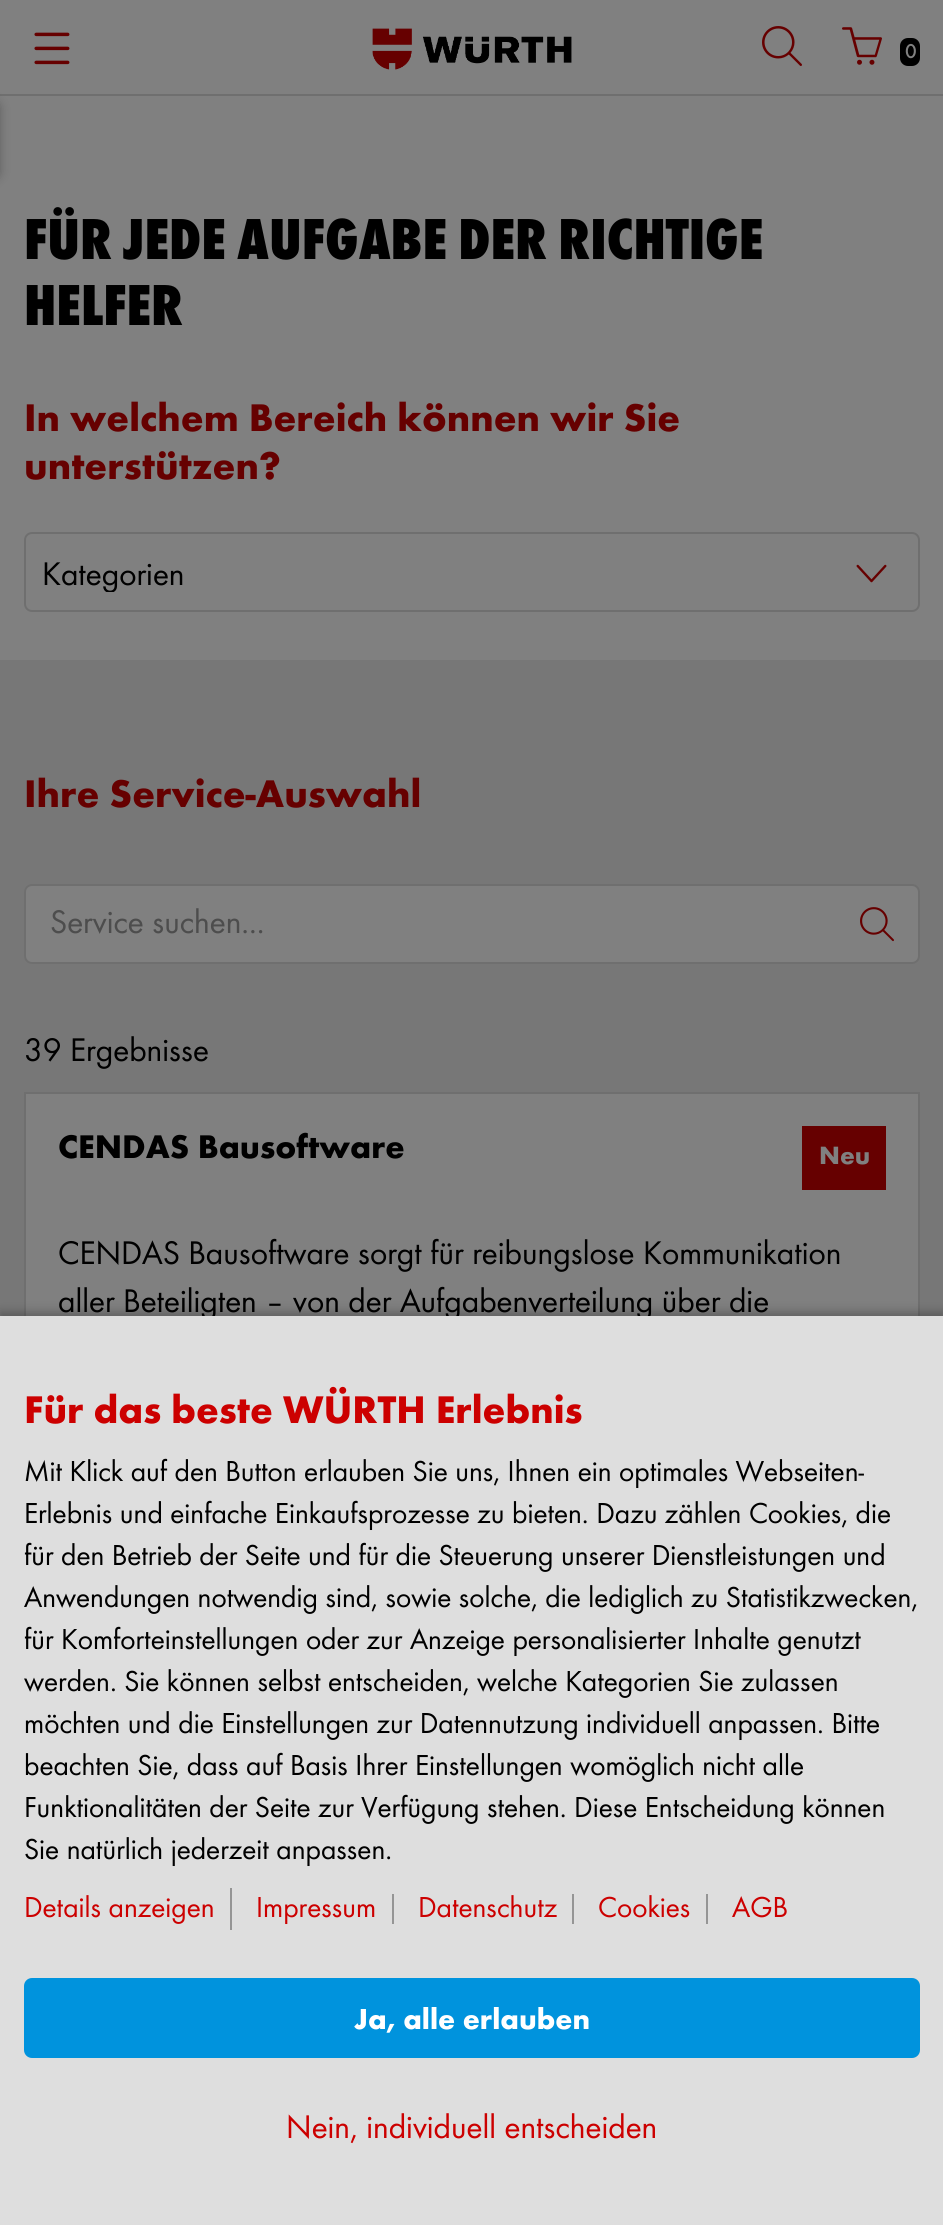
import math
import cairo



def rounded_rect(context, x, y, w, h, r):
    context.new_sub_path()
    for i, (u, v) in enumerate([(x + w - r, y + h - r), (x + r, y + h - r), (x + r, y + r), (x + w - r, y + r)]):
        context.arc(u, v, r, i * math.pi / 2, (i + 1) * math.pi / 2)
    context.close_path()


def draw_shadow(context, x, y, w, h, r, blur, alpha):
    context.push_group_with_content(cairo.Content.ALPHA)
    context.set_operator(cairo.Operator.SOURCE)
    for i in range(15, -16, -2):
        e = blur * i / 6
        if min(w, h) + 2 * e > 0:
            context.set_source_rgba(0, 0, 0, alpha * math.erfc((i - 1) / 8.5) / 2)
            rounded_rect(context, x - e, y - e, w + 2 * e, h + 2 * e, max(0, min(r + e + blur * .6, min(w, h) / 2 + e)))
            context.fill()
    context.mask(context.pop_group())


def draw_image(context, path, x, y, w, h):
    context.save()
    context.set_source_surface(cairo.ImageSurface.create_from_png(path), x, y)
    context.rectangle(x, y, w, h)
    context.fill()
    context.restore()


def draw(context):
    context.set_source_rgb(128 / 255, 128 / 255, 128 / 255)
    context.paint()
    context.set_source_rgb(111 / 255, 111 / 255, 111 / 255)
    context.rectangle(0, 94, 943, 2)
    context.fill()
    draw_image(context, "images/1.png", 34, 32, 36, 33)
    draw_image(context, "images/2.png", 372, 28, 200, 42)
    draw_image(context, "images/3.png", 762, 26, 40, 40)
    draw_image(context, "images/4.png", 842, 27, 40, 38)
    context.set_source_rgb(0, 0, 0)
    rounded_rect(context, 900, 38, 20, 28, 8)
    context.fill()
    context.set_source_rgb(0, 0, 0)
    draw_shadow(context, -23, 100, 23, 80, 8, 5, 0.26)
    draw_image(context, "images/5.png", 856, 564, 31, 19)
    rounded_rect(context, 25, 533, 894, 78, 7)
    context.set_source_rgb(111 / 255, 111 / 255, 111 / 255)
    context.stroke()
    context.set_source_rgb(119 / 255, 119 / 255, 119 / 255)
    context.rectangle(0, 660, 943, 656)
    context.fill()
    context.set_source_rgb(128 / 255, 128 / 255, 128 / 255)
    rounded_rect(context, 25, 885, 894, 78, 7)
    context.fill_preserve()
    context.set_source_rgb(111 / 255, 111 / 255, 111 / 255)
    context.stroke()
    draw_image(context, "images/6.png", 860, 907, 34, 35)
    context.set_source_rgb(128 / 255, 128 / 255, 128 / 255)
    context.rectangle(26, 1094, 892, 222)
    context.fill()
    context.rectangle(25, 1093, 894, 388)
    context.set_source_rgb(111 / 255, 111 / 255, 111 / 255)
    context.stroke()
    context.set_source_rgb(102 / 255, 0, 0)
    context.rectangle(802, 1126, 84, 64)
    context.fill()
    context.set_source_rgb(0, 0, 0)
    draw_shadow(context, 0, 1312, 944, 910, 0, 5, 0.26)
    context.select_font_face("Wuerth", cairo.FontSlant.NORMAL, cairo.FontWeight.BOLD)
    context.set_font_size(20)
    context.set_source_rgb(128 / 255, 128 / 255, 128 / 255)
    context.move_to(905, 58)
    context.show_text("0")
    context.select_font_face("Wuerth ExtraBold")
    context.set_font_size(60)
    context.set_source_rgb(0, 0, 0)
    context.move_to(24, 259)
    context.show_text("FÜR JEDE AUFGABE DER RICHTIGE")
    context.move_to(24, 325)
    context.show_text("HELFER")
    context.select_font_face("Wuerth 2", cairo.FontSlant.NORMAL, cairo.FontWeight.BOLD)
    context.set_font_size(40)
    context.set_source_rgb(102 / 255, 0, 0)
    context.move_to(24, 431)
    context.show_text("In welchem Bereich können wir Sie")
    context.move_to(24, 479)
    context.show_text("unterstützen?")
    context.save()
    context.rectangle(42, 558, 796, 34)
    context.clip()
    context.select_font_face("Wuerth")
    context.set_font_size(34)
    context.set_source_rgb(0, 0, 0)
    context.move_to(42, 585)
    context.show_text("Kategorien")
    context.restore()
    context.move_to(24, 807)
    context.show_text("Ihre Service-Auswahl")
    context.select_font_face("Wuerth")
    context.set_font_size(34)
    context.set_source_rgb(77 / 255, 77 / 255, 77 / 255)
    context.move_to(50, 933)
    context.show_text("Service suchen...")
    context.set_source_rgb(0, 0, 0)
    context.move_to(24, 1061)
    context.show_text("39 Ergebnisse")
    context.select_font_face("Wuerth 2", cairo.FontSlant.NORMAL, cairo.FontWeight.BOLD)
    context.move_to(58, 1158)
    context.show_text("CENDAS Bausoftware")
    context.set_font_size(26)
    context.set_source_rgb(128 / 255, 128 / 255, 128 / 255)
    context.move_to(819, 1164)
    context.show_text("Neu")
    context.select_font_face("Wuerth")
    context.set_font_size(34)
    context.set_source_rgb(0, 0, 0)
    context.move_to(58, 1264)
    context.show_text("CENDAS Bausoftware sorgt für reibungslose Kommunikation")
    context.move_to(58, 1312)
    context.show_text("aller Beteiligten – von der Aufgabenverteilung über die")
    context.set_source_rgb(222 / 255, 222 / 255, 222 / 255)
    context.rectangle(0, 1316, 943, 909)
    context.fill()
    context.select_font_face("Wuerth 2", cairo.FontSlant.NORMAL, cairo.FontWeight.BOLD)
    context.set_font_size(40)
    context.set_source_rgb(204 / 255, 0, 0)
    context.move_to(24, 1423)
    context.show_text("Für das beste WÜRTH Erlebnis")
    context.select_font_face("Wuerth")
    context.set_font_size(30)
    context.set_source_rgb(0, 0, 0)
    context.move_to(24, 1481)
    context.show_text("Mit Klick auf den Button erlauben Sie uns, Ihnen ein optimales Webseiten-")
    context.move_to(24, 1523)
    context.show_text("Erlebnis und einfache Einkaufsprozesse zu bieten. Dazu zählen Cookies, die")
    context.move_to(24, 1565)
    context.show_text("für den Betrieb der Seite und für die Steuerung unserer Dienstleistungen und")
    context.move_to(24, 1607)
    context.show_text("Anwendungen notwendig sind, sowie solche, die lediglich zu Statistikzwecken,")
    context.move_to(24, 1649)
    context.show_text("für Komforteinstellungen oder zur Anzeige personalisierter Inhalte genutzt")
    context.move_to(24, 1691)
    context.show_text("werden. Sie können selbst entscheiden, welche Kategorien Sie zulassen")
    context.move_to(24, 1733)
    context.show_text("möchten und die Einstellungen zur Datennutzung individuell anpassen. Bitte")
    context.move_to(24, 1775)
    context.show_text("beachten Sie, dass auf Basis Ihrer Einstellungen womöglich nicht alle")
    context.move_to(24, 1817)
    context.show_text("Funktionalitäten der Seite zur Verfügung stehen. Diese Entscheidung können")
    context.move_to(24, 1859)
    context.show_text("Sie natürlich jederzeit anpassen.")
    context.set_source_rgb(149 / 255, 149 / 255, 149 / 255)
    context.rectangle(230, 1888, 2, 42)
    context.fill()
    context.set_source_rgb(204 / 255, 0, 0)
    context.move_to(24, 1917)
    context.show_text("Details anzeigen")
    context.move_to(256, 1917)
    context.show_text("Impressum")
    context.set_source_rgb(149 / 255, 149 / 255, 149 / 255)
    context.rectangle(392, 1894, 2, 30)
    context.fill()
    context.set_source_rgb(204 / 255, 0, 0)
    context.move_to(418, 1917)
    context.show_text("Datenschutz")
    context.set_source_rgb(149 / 255, 149 / 255, 149 / 255)
    context.rectangle(572, 1894, 2, 30)
    context.fill()
    context.set_source_rgb(204 / 255, 0, 0)
    context.move_to(598, 1917)
    context.show_text("Cookies")
    context.set_source_rgb(149 / 255, 149 / 255, 149 / 255)
    context.rectangle(706, 1894, 2, 30)
    context.fill()
    context.set_source_rgb(204 / 255, 0, 0)
    context.move_to(732, 1917)
    context.show_text("AGB")
    context.set_source_rgb(0, 147 / 255, 221 / 255)
    rounded_rect(context, 24, 1978, 896, 80, 8)
    context.fill()
    context.select_font_face("Wuerth 2", cairo.FontSlant.NORMAL, cairo.FontWeight.BOLD)
    context.set_source_rgb(1, 1, 1)
    context.move_to(354, 2029)
    context.show_text("Ja, alle erlauben")
    context.select_font_face("Wuerth")
    context.set_font_size(34)
    context.set_source_rgb(204 / 255, 0, 0)
    context.move_to(286, 2138)
    context.show_text("Nein, individuell entscheiden")


surface = cairo.ImageSurface(cairo.Format.RGB24, 943, 2225)
context = cairo.Context(surface)
options = cairo.FontOptions()
options.set_hint_metrics(cairo.HintMetrics.OFF)
options.set_hint_style(cairo.HintStyle.NONE)
context.set_font_options(options)
context.set_miter_limit(4)
draw(context)
surface.write_to_png("out.png")
